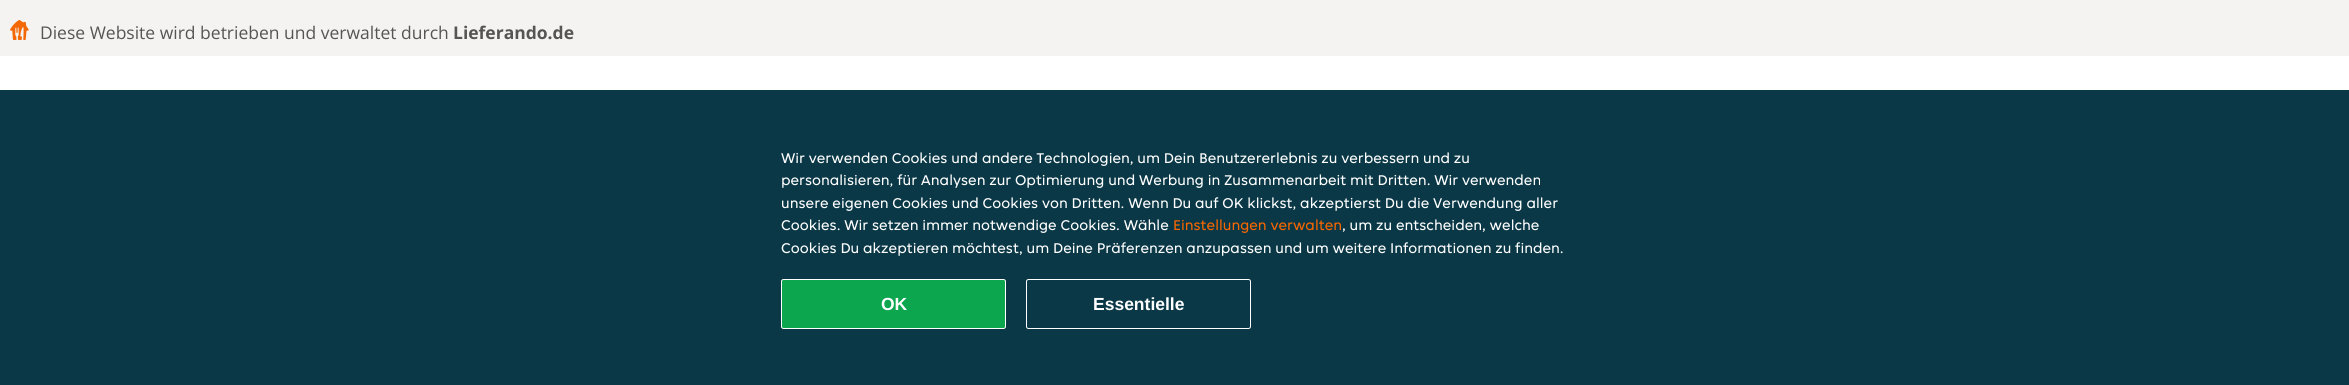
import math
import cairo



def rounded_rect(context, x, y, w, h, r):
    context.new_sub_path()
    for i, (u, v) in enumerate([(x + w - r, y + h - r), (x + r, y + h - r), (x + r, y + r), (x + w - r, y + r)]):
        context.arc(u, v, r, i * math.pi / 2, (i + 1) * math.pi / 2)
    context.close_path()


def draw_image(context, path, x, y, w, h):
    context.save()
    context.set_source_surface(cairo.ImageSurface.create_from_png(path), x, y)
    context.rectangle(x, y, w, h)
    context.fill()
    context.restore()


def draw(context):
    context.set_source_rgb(245 / 255, 243 / 255, 241 / 255)
    context.paint()
    draw_image(context, "images/1.png", 10, 20, 19, 20)
    context.set_source_rgb(1, 1, 1)
    context.rectangle(0, 56, 2349, 34)
    context.fill()
    context.set_source_rgb(10 / 255, 56 / 255, 71 / 255)
    context.rectangle(0, 90, 2349, 295)
    context.fill()
    context.set_source_rgb(12 / 255, 166 / 255, 79 / 255)
    rounded_rect(context, 781.5, 279.5, 224, 49, 2)
    context.fill_preserve()
    context.set_source_rgb(1, 1, 1)
    context.set_line_width(1)
    context.stroke()
    rounded_rect(context, 1026.5, 279.5, 224, 49, 2)
    context.stroke()
    context.select_font_face("Open Sans")
    context.set_font_size(17.5)
    context.set_source_rgb(85 / 255, 85 / 255, 85 / 255)
    context.move_to(40, 39)
    context.show_text("Diese Website wird betrieben und verwaltet durch")
    context.select_font_face("Open Sans", cairo.FontSlant.NORMAL, cairo.FontWeight.BOLD)
    context.move_to(453, 39)
    context.show_text("Lieferando.de")
    context.select_font_face("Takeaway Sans")
    context.set_font_size(15)
    context.set_source_rgb(1, 1, 1)
    context.move_to(781, 163)
    context.show_text("Wir verwenden Cookies und andere Technologien, um Dein Benutzererlebnis zu verbessern und zu")
    context.move_to(781, 185)
    context.show_text("personalisieren, für Analysen zur Optimierung und Werbung in Zusammenarbeit mit Dritten. Wir verwenden")
    context.move_to(781, 208)
    context.show_text("unsere eigenen Cookies und Cookies von Dritten. Wenn Du auf OK klickst, akzeptierst Du die Verwendung aller")
    context.move_to(781, 230)
    context.show_text("Cookies. Wir setzen immer notwendige Cookies. Wähle")
    context.set_source_rgb(248 / 255, 102 / 255, 0)
    context.move_to(1173, 230)
    context.show_text("Einstellungen verwalten")
    context.set_source_rgb(1, 1, 1)
    context.move_to(1342, 230)
    context.show_text(", um zu entscheiden, welche")
    context.move_to(781, 253)
    context.show_text("Cookies Du akzeptieren möchtest, um Deine Präferenzen anzupassen und um weitere Informationen zu finden.")
    context.select_font_face("Liberation Sans", cairo.FontSlant.NORMAL, cairo.FontWeight.BOLD)
    context.set_font_size(17.5)
    context.move_to(881, 310)
    context.show_text("OK")
    context.move_to(1093, 310)
    context.show_text("Essentielle")


surface = cairo.ImageSurface(cairo.Format.RGB24, 2349, 385)
context = cairo.Context(surface)
options = cairo.FontOptions()
options.set_hint_metrics(cairo.HintMetrics.OFF)
options.set_hint_style(cairo.HintStyle.NONE)
context.set_font_options(options)
context.set_miter_limit(4)
draw(context)
surface.write_to_png("out.png")
